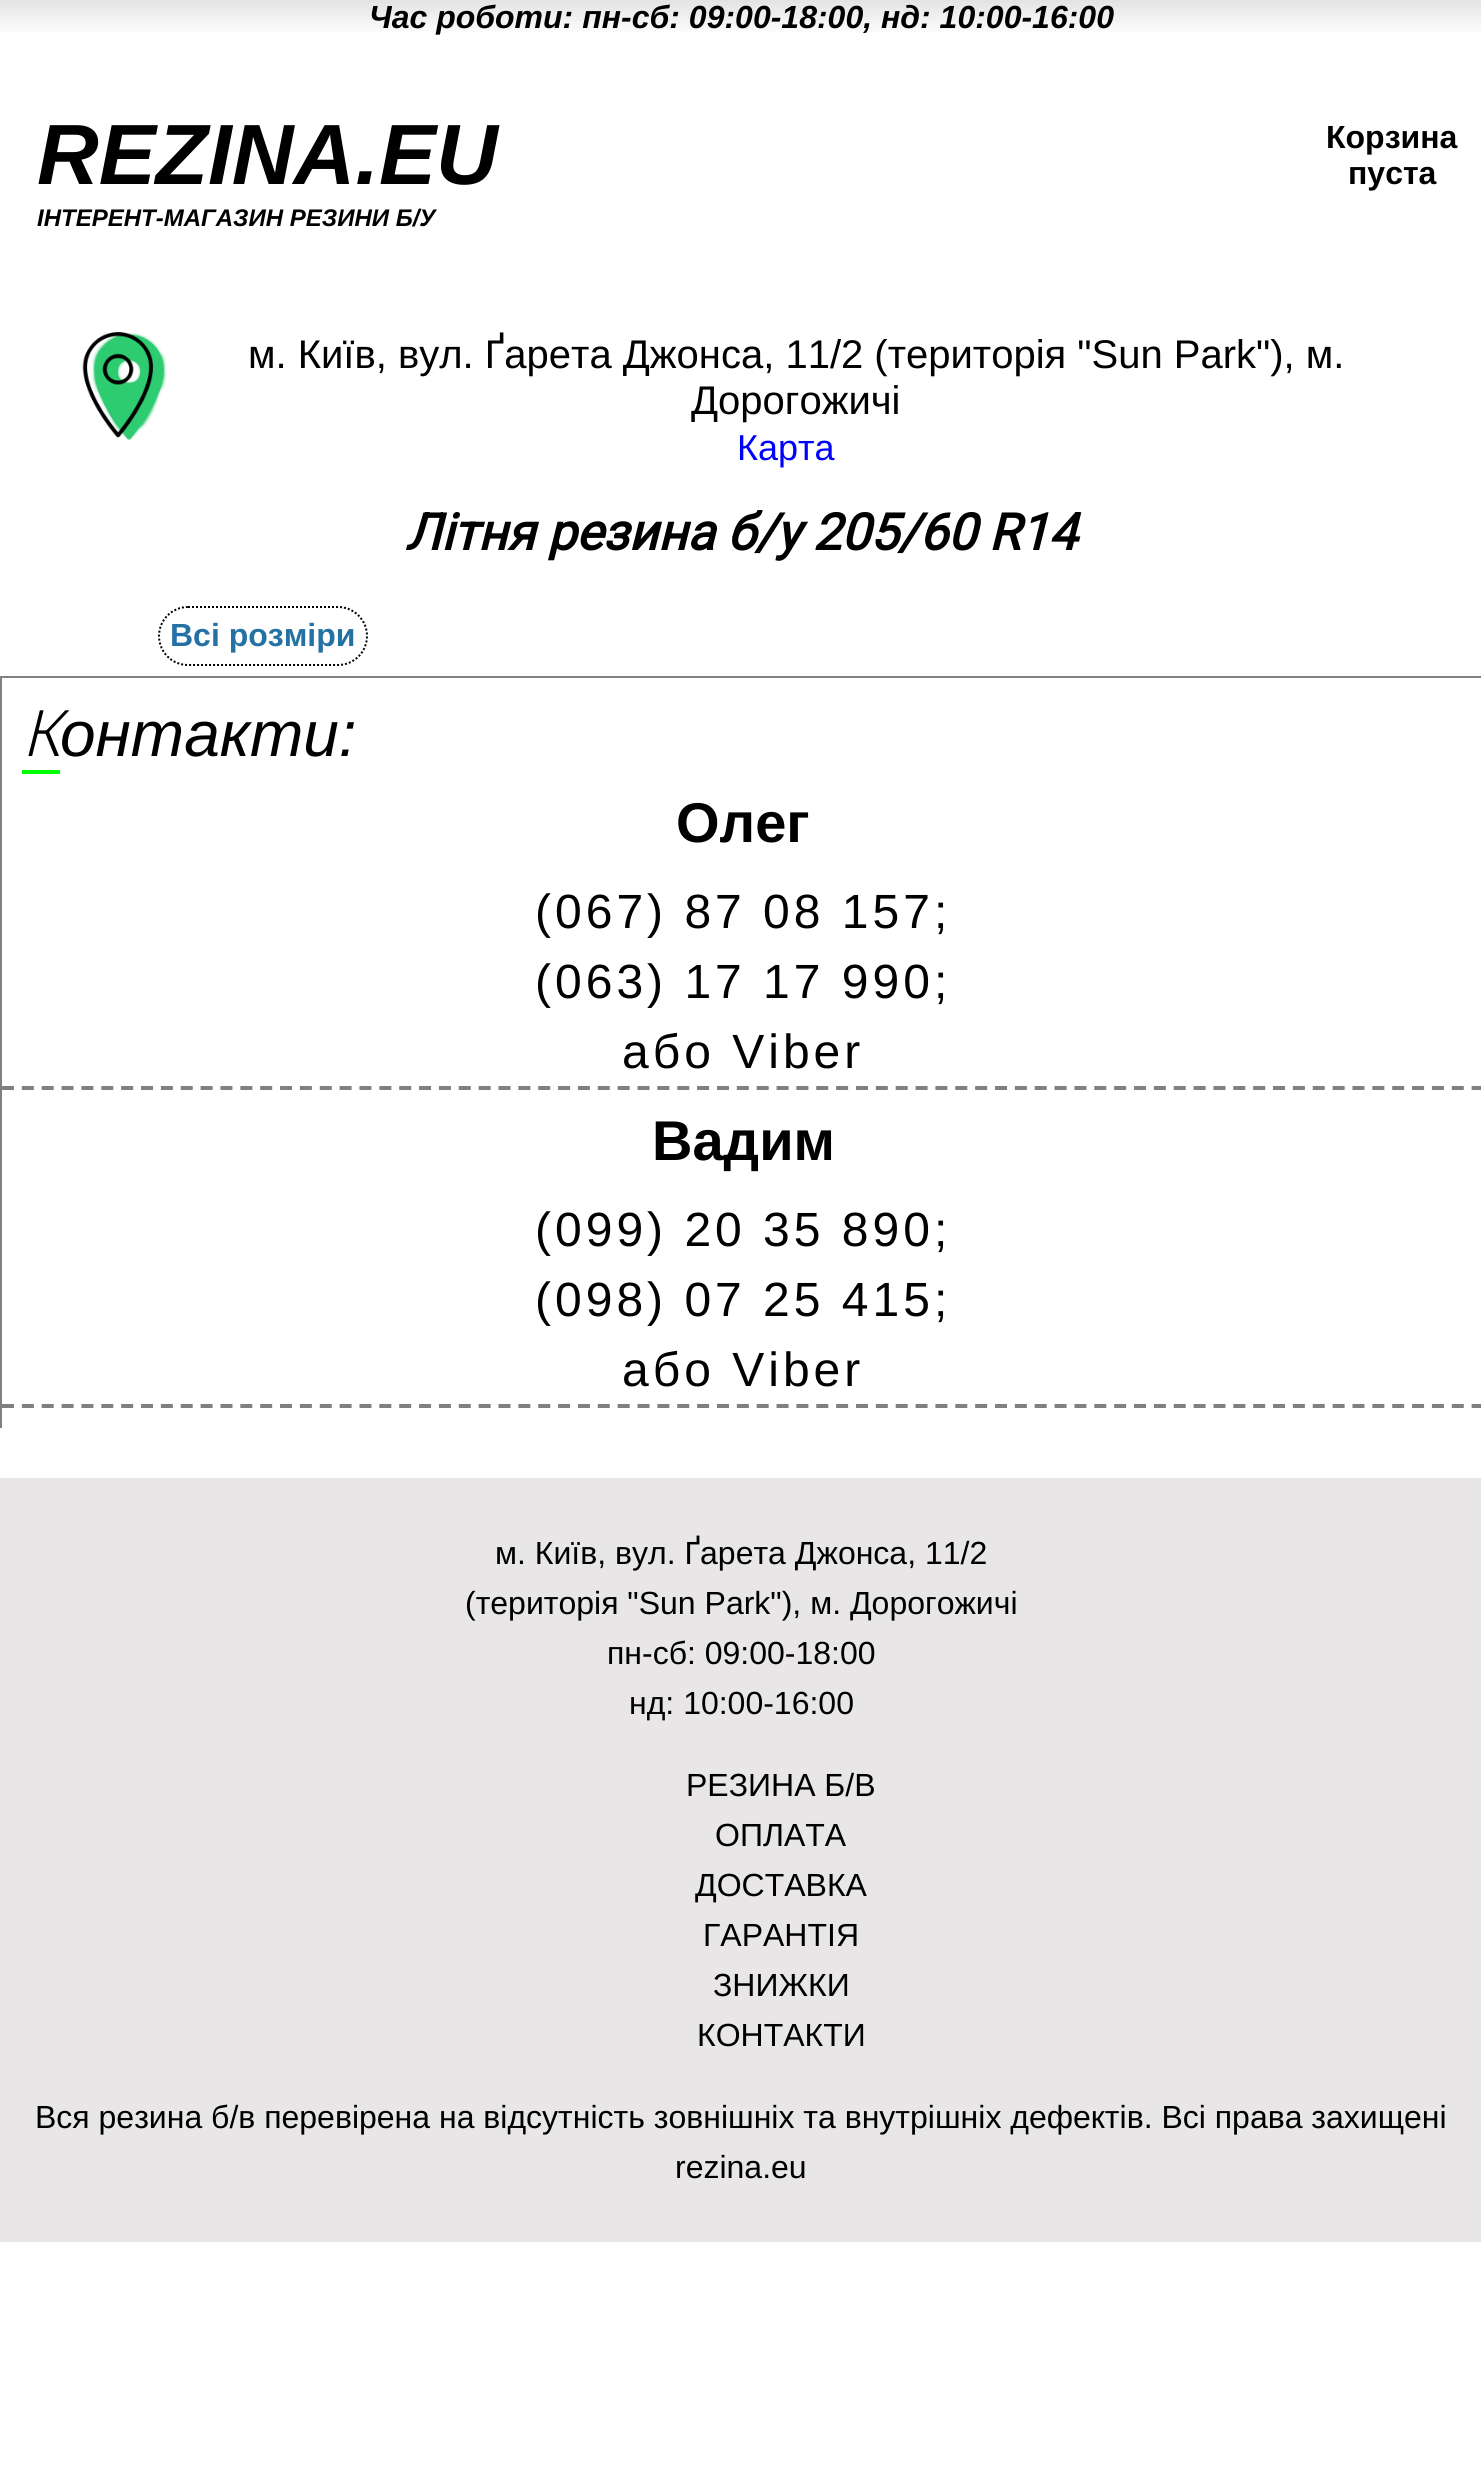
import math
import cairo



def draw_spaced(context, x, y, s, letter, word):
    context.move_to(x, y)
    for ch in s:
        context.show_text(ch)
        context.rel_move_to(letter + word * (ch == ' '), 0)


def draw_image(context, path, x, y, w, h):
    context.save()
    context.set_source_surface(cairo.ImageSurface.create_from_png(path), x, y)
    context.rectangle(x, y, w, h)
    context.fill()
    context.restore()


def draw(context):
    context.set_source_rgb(1, 1, 1)
    context.paint()
    gradient = cairo.LinearGradient(741, 36, 741, 0)
    gradient.add_color_stop_rgba(0, 1, 1, 1, 1)
    gradient.add_color_stop_rgba(1, 227 / 255, 227 / 255, 227 / 255, 1)
    context.set_source(gradient)
    context.rectangle(0, 0, 1481, 33)
    context.fill()
    draw_image(context, "images/1.png", 82, 332, 85, 109)
    context.new_path()
    context.move_to(188, 607)
    context.line_to(338, 607)
    context.curve_to(354, 607, 367, 620, 367, 636)
    context.curve_to(367, 652, 354, 665, 338, 665)
    context.line_to(188, 665)
    context.curve_to(172, 665, 159, 652, 159, 636)
    context.curve_to(159, 620, 172, 607, 188, 607)
    context.close_path()
    context.set_source_rgb(0, 0, 0)
    context.set_dash([2, 2])
    context.stroke()
    context.set_source_rgb(128 / 255, 128 / 255, 128 / 255)
    context.rectangle(0, 676, 1481, 2)
    context.fill()
    context.rectangle(0, 676, 2, 752)
    context.fill()
    context.set_source_rgb(0, 1, 0)
    context.rectangle(22, 770, 38, 4)
    context.fill()
    context.new_path()
    context.move_to(2, 1088)
    context.line_to(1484, 1088)
    context.set_source_rgb(128 / 255, 128 / 255, 128 / 255)
    context.set_line_width(4)
    context.set_dash([12, 7.86])
    context.stroke()
    context.new_path()
    context.move_to(2, 1406)
    context.line_to(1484, 1406)
    context.stroke()
    context.set_source_rgb(232 / 255, 230 / 255, 230 / 255)
    context.rectangle(0, 1478, 1481, 764)
    context.fill()
    context.select_font_face("Liberation Sans", cairo.FontSlant.ITALIC, cairo.FontWeight.BOLD)
    context.set_font_size(32)
    context.set_source_rgb(0, 0, 0)
    context.move_to(369, 28)
    context.show_text("Час роботи: пн-сб: 09:00-18:00, нд: 10:00-16:00")
    context.set_font_size(85.5)
    context.move_to(37, 184)
    context.show_text("REZINA.EU")
    context.set_font_size(24)
    context.move_to(37, 226)
    context.show_text("ІНТЕРЕНТ-МАГАЗИН РЕЗИНИ Б/У")
    context.select_font_face("Liberation Sans", cairo.FontSlant.NORMAL, cairo.FontWeight.BOLD)
    context.set_font_size(32)
    context.move_to(1326, 148)
    context.show_text("Корзина")
    context.move_to(1348, 184)
    context.show_text("пуста")
    context.select_font_face("Liberation Sans")
    context.set_font_size(40)
    context.move_to(248, 368)
    context.show_text("м. Київ, вул. Ґарета Джонса, 11/2 (територія \"Sun Park\"), м.")
    context.move_to(691, 414)
    context.show_text("Дорогожичі")
    context.set_font_size(36)
    context.set_source_rgb(0, 0, 1)
    context.move_to(737, 460)
    context.show_text("Карта")
    context.select_font_face("Roboto", cairo.FontSlant.ITALIC, cairo.FontWeight.BOLD)
    context.set_font_size(50.7)
    context.set_source_rgb(0, 0, 0)
    context.move_to(405, 550)
    context.show_text("Літня резина б/у 205/60 R14")
    context.select_font_face("Liberation Sans", cairo.FontSlant.NORMAL, cairo.FontWeight.BOLD)
    context.set_font_size(32)
    context.set_source_rgb(36 / 255, 113 / 255, 163 / 255)
    context.move_to(170, 646)
    context.show_text("Всі розміри")
    context.select_font_face("Noto Sans Light", cairo.FontSlant.ITALIC)
    context.set_font_size(64)
    context.set_source_rgb(0, 0, 0)
    context.move_to(22, 756)
    context.show_text("К")
    context.select_font_face("Liberation Sans", cairo.FontSlant.ITALIC)
    context.move_to(60, 756)
    context.show_text("онтакти:")
    context.select_font_face("Liberation Sans", cairo.FontSlant.NORMAL, cairo.FontWeight.BOLD)
    context.set_font_size(56)
    context.move_to(676, 842)
    context.show_text("Олег")
    context.select_font_face("Liberation Sans")
    context.set_font_size(48)
    draw_spaced(context, 535, 928, "(067) 87 08 157;", 4, 0)
    draw_spaced(context, 535, 998, "(063) 17 17 990;", 4, 0)
    draw_spaced(context, 622, 1068, "або Viber", 4, 0)
    context.select_font_face("Liberation Sans", cairo.FontSlant.NORMAL, cairo.FontWeight.BOLD)
    context.set_font_size(56)
    context.move_to(652, 1160)
    context.show_text("Вадим")
    context.select_font_face("Liberation Sans")
    context.set_font_size(48)
    draw_spaced(context, 535, 1246, "(099) 20 35 890;", 4, 0)
    draw_spaced(context, 535, 1316, "(098) 07 25 415;", 4, 0)
    draw_spaced(context, 622, 1386, "або Viber", 4, 0)
    context.set_font_size(32)
    context.move_to(495, 1564)
    context.show_text("м. Київ, вул. Ґарета Джонса, 11/2")
    context.move_to(465, 1614)
    context.show_text("(територія \"Sun Park\"), м. Дорогожичі")
    context.move_to(607, 1664)
    context.show_text("пн-сб: 09:00-18:00")
    context.move_to(629, 1714)
    context.show_text("нд: 10:00-16:00")
    context.move_to(686, 1796)
    context.show_text("РЕЗИНА Б/В")
    context.move_to(715, 1846)
    context.show_text("ОПЛАТА")
    context.move_to(695, 1896)
    context.show_text("ДОСТАВКА")
    context.move_to(703, 1946)
    context.show_text("ГАРАНТІЯ")
    context.move_to(713, 1996)
    context.show_text("ЗНИЖКИ")
    context.move_to(697, 2046)
    context.show_text("КОНТАКТИ")
    context.move_to(35, 2128)
    context.show_text("Вся резина б/в перевірена на відсутність зовнішніх та внутрішніх дефектів. Всі права захищені")
    context.move_to(675, 2178)
    context.show_text("rezina.eu")


surface = cairo.ImageSurface(cairo.Format.RGB24, 1481, 2477)
context = cairo.Context(surface)
options = cairo.FontOptions()
options.set_hint_metrics(cairo.HintMetrics.OFF)
options.set_hint_style(cairo.HintStyle.NONE)
context.set_font_options(options)
context.set_miter_limit(4)
draw(context)
surface.write_to_png("out.png")
